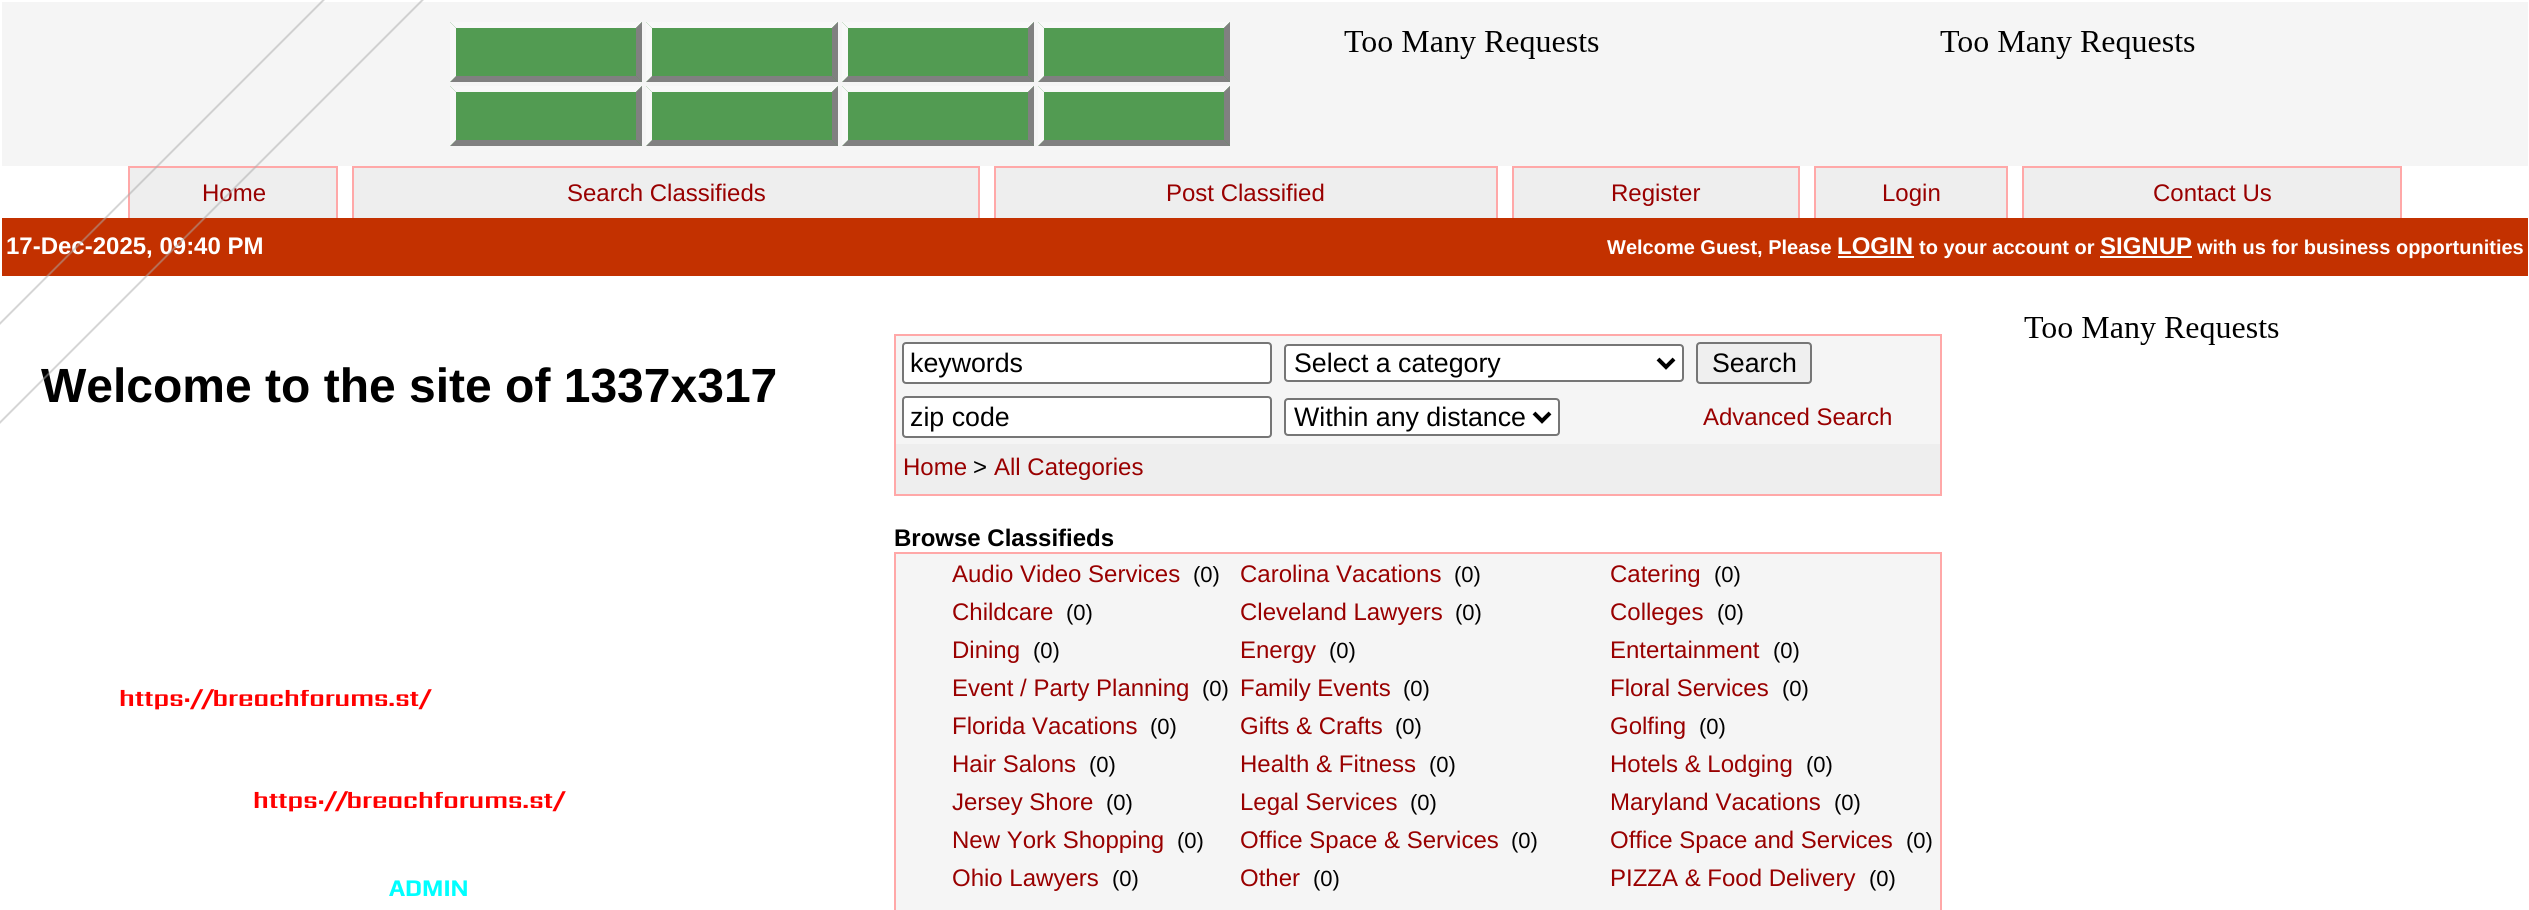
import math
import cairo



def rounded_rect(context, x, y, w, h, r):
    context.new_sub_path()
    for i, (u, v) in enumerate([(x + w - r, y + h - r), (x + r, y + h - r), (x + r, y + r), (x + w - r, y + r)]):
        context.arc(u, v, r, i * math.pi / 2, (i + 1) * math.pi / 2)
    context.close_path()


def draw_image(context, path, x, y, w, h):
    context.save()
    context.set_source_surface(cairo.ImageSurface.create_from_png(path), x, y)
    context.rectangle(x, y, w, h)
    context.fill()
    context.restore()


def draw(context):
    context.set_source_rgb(1, 1, 1)
    context.paint()
    context.set_source_rgb(245 / 255, 245 / 255, 245 / 255)
    context.rectangle(2, 2, 2526, 164)
    context.fill()
    context.set_source_rgb(82 / 255, 155 / 255, 82 / 255)
    context.rectangle(450, 22, 192, 60)
    context.fill()
    context.set_source_rgb(248 / 255, 248 / 255, 248 / 255)
    context.new_path()
    context.move_to(450, 22)
    context.line_to(642, 22)
    context.line_to(636, 28)
    context.line_to(456, 28)
    context.close_path()
    context.fill()
    context.set_source_rgb(128 / 255, 128 / 255, 128 / 255)
    context.new_path()
    context.move_to(642, 22)
    context.line_to(642, 82)
    context.line_to(636, 76)
    context.line_to(636, 28)
    context.close_path()
    context.fill()
    context.new_path()
    context.move_to(642, 82)
    context.line_to(450, 82)
    context.line_to(456, 76)
    context.line_to(636, 76)
    context.close_path()
    context.fill()
    context.set_source_rgb(248 / 255, 248 / 255, 248 / 255)
    context.new_path()
    context.move_to(450, 82)
    context.line_to(450, 22)
    context.line_to(456, 28)
    context.line_to(456, 76)
    context.close_path()
    context.fill()
    context.set_source_rgb(82 / 255, 155 / 255, 82 / 255)
    context.rectangle(646, 22, 192, 60)
    context.fill()
    context.set_source_rgb(248 / 255, 248 / 255, 248 / 255)
    context.new_path()
    context.move_to(646, 22)
    context.line_to(838, 22)
    context.line_to(832, 28)
    context.line_to(652, 28)
    context.close_path()
    context.fill()
    context.set_source_rgb(128 / 255, 128 / 255, 128 / 255)
    context.new_path()
    context.move_to(838, 22)
    context.line_to(838, 82)
    context.line_to(832, 76)
    context.line_to(832, 28)
    context.close_path()
    context.fill()
    context.new_path()
    context.move_to(838, 82)
    context.line_to(646, 82)
    context.line_to(652, 76)
    context.line_to(832, 76)
    context.close_path()
    context.fill()
    context.set_source_rgb(248 / 255, 248 / 255, 248 / 255)
    context.new_path()
    context.move_to(646, 82)
    context.line_to(646, 22)
    context.line_to(652, 28)
    context.line_to(652, 76)
    context.close_path()
    context.fill()
    context.set_source_rgb(82 / 255, 155 / 255, 82 / 255)
    context.rectangle(842, 22, 192, 60)
    context.fill()
    context.set_source_rgb(248 / 255, 248 / 255, 248 / 255)
    context.new_path()
    context.move_to(842, 22)
    context.line_to(1034, 22)
    context.line_to(1028, 28)
    context.line_to(848, 28)
    context.close_path()
    context.fill()
    context.set_source_rgb(128 / 255, 128 / 255, 128 / 255)
    context.new_path()
    context.move_to(1034, 22)
    context.line_to(1034, 82)
    context.line_to(1028, 76)
    context.line_to(1028, 28)
    context.close_path()
    context.fill()
    context.new_path()
    context.move_to(1034, 82)
    context.line_to(842, 82)
    context.line_to(848, 76)
    context.line_to(1028, 76)
    context.close_path()
    context.fill()
    context.set_source_rgb(248 / 255, 248 / 255, 248 / 255)
    context.new_path()
    context.move_to(842, 82)
    context.line_to(842, 22)
    context.line_to(848, 28)
    context.line_to(848, 76)
    context.close_path()
    context.fill()
    context.set_source_rgb(82 / 255, 155 / 255, 82 / 255)
    context.rectangle(1038, 22, 192, 60)
    context.fill()
    context.set_source_rgb(248 / 255, 248 / 255, 248 / 255)
    context.new_path()
    context.move_to(1038, 22)
    context.line_to(1230, 22)
    context.line_to(1224, 28)
    context.line_to(1044, 28)
    context.close_path()
    context.fill()
    context.set_source_rgb(128 / 255, 128 / 255, 128 / 255)
    context.new_path()
    context.move_to(1230, 22)
    context.line_to(1230, 82)
    context.line_to(1224, 76)
    context.line_to(1224, 28)
    context.close_path()
    context.fill()
    context.new_path()
    context.move_to(1230, 82)
    context.line_to(1038, 82)
    context.line_to(1044, 76)
    context.line_to(1224, 76)
    context.close_path()
    context.fill()
    context.set_source_rgb(248 / 255, 248 / 255, 248 / 255)
    context.new_path()
    context.move_to(1038, 82)
    context.line_to(1038, 22)
    context.line_to(1044, 28)
    context.line_to(1044, 76)
    context.close_path()
    context.fill()
    context.set_source_rgb(82 / 255, 155 / 255, 82 / 255)
    context.rectangle(450, 86, 192, 60)
    context.fill()
    context.set_source_rgb(248 / 255, 248 / 255, 248 / 255)
    context.new_path()
    context.move_to(450, 86)
    context.line_to(642, 86)
    context.line_to(636, 92)
    context.line_to(456, 92)
    context.close_path()
    context.fill()
    context.set_source_rgb(128 / 255, 128 / 255, 128 / 255)
    context.new_path()
    context.move_to(642, 86)
    context.line_to(642, 146)
    context.line_to(636, 140)
    context.line_to(636, 92)
    context.close_path()
    context.fill()
    context.new_path()
    context.move_to(642, 146)
    context.line_to(450, 146)
    context.line_to(456, 140)
    context.line_to(636, 140)
    context.close_path()
    context.fill()
    context.set_source_rgb(248 / 255, 248 / 255, 248 / 255)
    context.new_path()
    context.move_to(450, 146)
    context.line_to(450, 86)
    context.line_to(456, 92)
    context.line_to(456, 140)
    context.close_path()
    context.fill()
    context.set_source_rgb(82 / 255, 155 / 255, 82 / 255)
    context.rectangle(646, 86, 192, 60)
    context.fill()
    context.set_source_rgb(248 / 255, 248 / 255, 248 / 255)
    context.new_path()
    context.move_to(646, 86)
    context.line_to(838, 86)
    context.line_to(832, 92)
    context.line_to(652, 92)
    context.close_path()
    context.fill()
    context.set_source_rgb(128 / 255, 128 / 255, 128 / 255)
    context.new_path()
    context.move_to(838, 86)
    context.line_to(838, 146)
    context.line_to(832, 140)
    context.line_to(832, 92)
    context.close_path()
    context.fill()
    context.new_path()
    context.move_to(838, 146)
    context.line_to(646, 146)
    context.line_to(652, 140)
    context.line_to(832, 140)
    context.close_path()
    context.fill()
    context.set_source_rgb(248 / 255, 248 / 255, 248 / 255)
    context.new_path()
    context.move_to(646, 146)
    context.line_to(646, 86)
    context.line_to(652, 92)
    context.line_to(652, 140)
    context.close_path()
    context.fill()
    context.set_source_rgb(82 / 255, 155 / 255, 82 / 255)
    context.rectangle(842, 86, 192, 60)
    context.fill()
    context.set_source_rgb(248 / 255, 248 / 255, 248 / 255)
    context.new_path()
    context.move_to(842, 86)
    context.line_to(1034, 86)
    context.line_to(1028, 92)
    context.line_to(848, 92)
    context.close_path()
    context.fill()
    context.set_source_rgb(128 / 255, 128 / 255, 128 / 255)
    context.new_path()
    context.move_to(1034, 86)
    context.line_to(1034, 146)
    context.line_to(1028, 140)
    context.line_to(1028, 92)
    context.close_path()
    context.fill()
    context.new_path()
    context.move_to(1034, 146)
    context.line_to(842, 146)
    context.line_to(848, 140)
    context.line_to(1028, 140)
    context.close_path()
    context.fill()
    context.set_source_rgb(248 / 255, 248 / 255, 248 / 255)
    context.new_path()
    context.move_to(842, 146)
    context.line_to(842, 86)
    context.line_to(848, 92)
    context.line_to(848, 140)
    context.close_path()
    context.fill()
    context.set_source_rgb(82 / 255, 155 / 255, 82 / 255)
    context.rectangle(1038, 86, 192, 60)
    context.fill()
    context.set_source_rgb(248 / 255, 248 / 255, 248 / 255)
    context.new_path()
    context.move_to(1038, 86)
    context.line_to(1230, 86)
    context.line_to(1224, 92)
    context.line_to(1044, 92)
    context.close_path()
    context.fill()
    context.set_source_rgb(128 / 255, 128 / 255, 128 / 255)
    context.new_path()
    context.move_to(1230, 86)
    context.line_to(1230, 146)
    context.line_to(1224, 140)
    context.line_to(1224, 92)
    context.close_path()
    context.fill()
    context.new_path()
    context.move_to(1230, 146)
    context.line_to(1038, 146)
    context.line_to(1044, 140)
    context.line_to(1224, 140)
    context.close_path()
    context.fill()
    context.set_source_rgb(248 / 255, 248 / 255, 248 / 255)
    context.new_path()
    context.move_to(1038, 146)
    context.line_to(1038, 86)
    context.line_to(1044, 92)
    context.line_to(1044, 140)
    context.close_path()
    context.fill()
    draw_image(context, "images/1.png", 1344, 31, 255, 28)
    draw_image(context, "images/1.png", 1940, 31, 255, 28)
    context.set_source_rgb(238 / 255, 238 / 255, 238 / 255)
    context.rectangle(130, 168, 206, 50)
    context.fill()
    context.set_source_rgb(1, 168 / 255, 168 / 255)
    context.rectangle(128, 166, 210, 2)
    context.fill()
    context.rectangle(336, 166, 2, 52)
    context.fill()
    context.rectangle(128, 166, 2, 52)
    context.fill()
    context.set_source_rgb(238 / 255, 238 / 255, 238 / 255)
    context.rectangle(354, 168, 624, 50)
    context.fill()
    context.set_source_rgb(1, 168 / 255, 168 / 255)
    context.rectangle(352, 166, 628, 2)
    context.fill()
    context.rectangle(978, 166, 2, 52)
    context.fill()
    context.rectangle(352, 166, 2, 52)
    context.fill()
    context.set_source_rgb(238 / 255, 238 / 255, 238 / 255)
    context.rectangle(996, 168, 500, 50)
    context.fill()
    context.set_source_rgb(1, 168 / 255, 168 / 255)
    context.rectangle(994, 166, 504, 2)
    context.fill()
    context.rectangle(1496, 166, 2, 52)
    context.fill()
    context.rectangle(994, 166, 2, 52)
    context.fill()
    context.set_source_rgb(238 / 255, 238 / 255, 238 / 255)
    context.rectangle(1514, 168, 284, 50)
    context.fill()
    context.set_source_rgb(1, 168 / 255, 168 / 255)
    context.rectangle(1512, 166, 288, 2)
    context.fill()
    context.rectangle(1798, 166, 2, 52)
    context.fill()
    context.rectangle(1512, 166, 2, 52)
    context.fill()
    context.set_source_rgb(238 / 255, 238 / 255, 238 / 255)
    context.rectangle(1816, 168, 190, 50)
    context.fill()
    context.set_source_rgb(1, 168 / 255, 168 / 255)
    context.rectangle(1814, 166, 194, 2)
    context.fill()
    context.rectangle(2006, 166, 2, 52)
    context.fill()
    context.rectangle(1814, 166, 2, 52)
    context.fill()
    context.set_source_rgb(238 / 255, 238 / 255, 238 / 255)
    context.rectangle(2024, 168, 376, 50)
    context.fill()
    context.set_source_rgb(1, 168 / 255, 168 / 255)
    context.rectangle(2022, 166, 380, 2)
    context.fill()
    context.rectangle(2400, 166, 2, 52)
    context.fill()
    context.rectangle(2022, 166, 2, 52)
    context.fill()
    context.set_source_rgb(195 / 255, 49 / 255, 0)
    context.rectangle(2, 218, 2526, 58)
    context.fill()
    context.set_source_rgb(1, 1, 1)
    context.rectangle(1838, 256, 76, 2)
    context.fill()
    context.rectangle(2100, 256, 92, 2)
    context.fill()
    draw_image(context, "images/2.png", 2024, 317, 255, 28)
    context.rectangle(895, 335, 1046, 160)
    context.set_source_rgb(1, 168 / 255, 168 / 255)
    context.stroke()
    context.set_source_rgb(245 / 255, 245 / 255, 245 / 255)
    context.rectangle(896, 336, 1044, 108)
    context.fill()
    context.set_source_rgb(1, 1, 1)
    rounded_rect(context, 903, 343, 368, 40, 3)
    context.fill_preserve()
    context.set_source_rgb(118 / 255, 118 / 255, 118 / 255)
    context.stroke()
    context.set_source_rgb(1, 1, 1)
    rounded_rect(context, 1285, 345, 398, 36, 3)
    context.fill_preserve()
    context.set_source_rgb(118 / 255, 118 / 255, 118 / 255)
    context.stroke()
    context.new_path()
    context.move_to(1658, 359)
    context.line_to(1666, 367)
    context.line_to(1674, 359)
    context.set_source_rgb(0, 0, 0)
    context.set_line_width(4)
    context.stroke()
    context.set_source_rgb(239 / 255, 239 / 255, 239 / 255)
    rounded_rect(context, 1697, 343, 114, 40, 3)
    context.fill_preserve()
    context.set_source_rgb(118 / 255, 118 / 255, 118 / 255)
    context.set_line_width(2)
    context.stroke()
    context.set_source_rgb(1, 1, 1)
    rounded_rect(context, 903, 397, 368, 40, 3)
    context.fill_preserve()
    context.set_source_rgb(118 / 255, 118 / 255, 118 / 255)
    context.stroke()
    context.set_source_rgb(1, 1, 1)
    rounded_rect(context, 1285, 399, 274, 36, 3)
    context.fill_preserve()
    context.set_source_rgb(118 / 255, 118 / 255, 118 / 255)
    context.stroke()
    context.new_path()
    context.move_to(1534, 413)
    context.line_to(1542, 421)
    context.line_to(1550, 413)
    context.set_source_rgb(0, 0, 0)
    context.set_line_width(4)
    context.stroke()
    context.set_source_rgb(238 / 255, 238 / 255, 238 / 255)
    context.rectangle(896, 444, 1044, 50)
    context.fill()
    context.rectangle(895, 553, 1046, 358)
    context.set_source_rgb(1, 168 / 255, 168 / 255)
    context.set_line_width(2)
    context.stroke()
    context.set_source_rgb(245 / 255, 245 / 255, 245 / 255)
    context.rectangle(896, 554, 1044, 356)
    context.fill()
    context.select_font_face("Liberation Sans")
    context.set_font_size(24)
    context.set_source_rgb(153 / 255, 0, 0)
    context.move_to(202, 201)
    context.show_text("Home")
    context.move_to(567, 201)
    context.show_text("Search Classifieds")
    context.move_to(1166, 201)
    context.show_text("Post Classified")
    context.move_to(1611, 201)
    context.show_text("Register")
    context.move_to(1882, 201)
    context.show_text("Login")
    context.move_to(2153, 201)
    context.show_text("Contact Us")
    context.select_font_face("Liberation Sans", cairo.FontSlant.NORMAL, cairo.FontWeight.BOLD)
    context.set_source_rgb(1, 1, 1)
    context.move_to(6, 254)
    context.show_text("17-Dec-2025, 09:40 PM")
    context.set_font_size(20)
    context.move_to(1607, 254)
    context.show_text("Welcome Guest, Please")
    context.set_font_size(24)
    context.move_to(1837, 254)
    context.show_text("LOGIN")
    context.set_font_size(20)
    context.move_to(1919, 254)
    context.show_text("to your account or")
    context.set_font_size(24)
    context.move_to(2100, 254)
    context.show_text("SIGNUP")
    context.set_font_size(20)
    context.move_to(2197, 254)
    context.show_text("with us for business opportunities")
    context.set_font_size(48)
    context.set_source_rgb(0, 0, 0)
    context.move_to(41, 402)
    context.show_text("Welcome to the site of 1337x317")
    context.new_path()
    context.move_to(-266.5, 590)
    context.line_to(612, -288.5)
    context.line_to(661.5, -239)
    context.line_to(-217, 639.5)
    context.close_path()
    context.set_source_rgba(170 / 255, 170 / 255, 170 / 255, 0.5)
    context.stroke()
    context.select_font_face("Sarpanch", cairo.FontSlant.NORMAL, cairo.FontWeight.BOLD)
    context.set_font_size(24)
    context.set_source_rgb(1, 0, 0)
    context.move_to(119, 706)
    context.show_text("https://breachforums.st/")
    context.move_to(253, 808)
    context.show_text("https://breachforums.st/")
    context.select_font_face("Play", cairo.FontSlant.NORMAL, cairo.FontWeight.BOLD)
    context.set_source_rgb(0, 1, 1)
    context.move_to(389, 896)
    context.show_text("ADMIN")
    context.select_font_face("Liberation Sans")
    context.set_font_size(26.75)
    context.set_source_rgb(0, 0, 0)
    context.move_to(910, 372)
    context.show_text("keywords")
    context.move_to(1294, 372)
    context.show_text("Select a category")
    context.move_to(1712, 372)
    context.show_text("Search")
    context.move_to(910, 426)
    context.show_text("zip code")
    context.move_to(1294, 426)
    context.show_text("Within any distance")
    context.set_font_size(24)
    context.set_source_rgb(153 / 255, 0, 0)
    context.move_to(1703, 425)
    context.show_text("Advanced Search")
    context.move_to(903, 475)
    context.show_text("Home")
    context.set_source_rgb(0, 0, 0)
    context.move_to(973, 475)
    context.show_text(">")
    context.set_source_rgb(153 / 255, 0, 0)
    context.move_to(994, 475)
    context.show_text("All Categories")
    context.select_font_face("Liberation Sans", cairo.FontSlant.NORMAL, cairo.FontWeight.BOLD)
    context.set_source_rgb(0, 0, 0)
    context.move_to(894, 546)
    context.show_text("Browse Classifieds")
    context.select_font_face("Liberation Sans")
    context.set_source_rgb(153 / 255, 0, 0)
    context.move_to(952, 582)
    context.show_text("Audio Video Services")
    context.set_font_size(22)
    context.set_source_rgb(0, 0, 0)
    context.move_to(1193, 582)
    context.show_text("(0)")
    context.set_font_size(24)
    context.set_source_rgb(153 / 255, 0, 0)
    context.move_to(1240, 582)
    context.show_text("Carolina Vacations")
    context.set_font_size(22)
    context.set_source_rgb(0, 0, 0)
    context.move_to(1454, 582)
    context.show_text("(0)")
    context.set_font_size(24)
    context.set_source_rgb(153 / 255, 0, 0)
    context.move_to(1610, 582)
    context.show_text("Catering")
    context.set_font_size(22)
    context.set_source_rgb(0, 0, 0)
    context.move_to(1714, 582)
    context.show_text("(0)")
    context.set_font_size(24)
    context.set_source_rgb(153 / 255, 0, 0)
    context.move_to(952, 620)
    context.show_text("Childcare")
    context.set_font_size(22)
    context.set_source_rgb(0, 0, 0)
    context.move_to(1066, 620)
    context.show_text("(0)")
    context.set_font_size(24)
    context.set_source_rgb(153 / 255, 0, 0)
    context.move_to(1240, 620)
    context.show_text("Cleveland Lawyers")
    context.set_font_size(22)
    context.set_source_rgb(0, 0, 0)
    context.move_to(1455, 620)
    context.show_text("(0)")
    context.set_font_size(24)
    context.set_source_rgb(153 / 255, 0, 0)
    context.move_to(1610, 620)
    context.show_text("Colleges")
    context.set_font_size(22)
    context.set_source_rgb(0, 0, 0)
    context.move_to(1717, 620)
    context.show_text("(0)")
    context.set_font_size(24)
    context.set_source_rgb(153 / 255, 0, 0)
    context.move_to(952, 658)
    context.show_text("Dining")
    context.set_font_size(22)
    context.set_source_rgb(0, 0, 0)
    context.move_to(1033, 658)
    context.show_text("(0)")
    context.set_font_size(24)
    context.set_source_rgb(153 / 255, 0, 0)
    context.move_to(1240, 658)
    context.show_text("Energy")
    context.set_font_size(22)
    context.set_source_rgb(0, 0, 0)
    context.move_to(1329, 658)
    context.show_text("(0)")
    context.set_font_size(24)
    context.set_source_rgb(153 / 255, 0, 0)
    context.move_to(1610, 658)
    context.show_text("Entertainment")
    context.set_font_size(22)
    context.set_source_rgb(0, 0, 0)
    context.move_to(1773, 658)
    context.show_text("(0)")
    context.set_font_size(24)
    context.set_source_rgb(153 / 255, 0, 0)
    context.move_to(952, 696)
    context.show_text("Event / Party Planning")
    context.set_font_size(22)
    context.set_source_rgb(0, 0, 0)
    context.move_to(1202, 696)
    context.show_text("(0)")
    context.set_font_size(24)
    context.set_source_rgb(153 / 255, 0, 0)
    context.move_to(1240, 696)
    context.show_text("Family Events")
    context.set_font_size(22)
    context.set_source_rgb(0, 0, 0)
    context.move_to(1403, 696)
    context.show_text("(0)")
    context.set_font_size(24)
    context.set_source_rgb(153 / 255, 0, 0)
    context.move_to(1610, 696)
    context.show_text("Floral Services")
    context.set_font_size(22)
    context.set_source_rgb(0, 0, 0)
    context.move_to(1782, 696)
    context.show_text("(0)")
    context.set_font_size(24)
    context.set_source_rgb(153 / 255, 0, 0)
    context.move_to(952, 734)
    context.show_text("Florida Vacations")
    context.set_font_size(22)
    context.set_source_rgb(0, 0, 0)
    context.move_to(1150, 734)
    context.show_text("(0)")
    context.set_font_size(24)
    context.set_source_rgb(153 / 255, 0, 0)
    context.move_to(1240, 734)
    context.show_text("Gifts & Crafts")
    context.set_font_size(22)
    context.set_source_rgb(0, 0, 0)
    context.move_to(1395, 734)
    context.show_text("(0)")
    context.set_font_size(24)
    context.set_source_rgb(153 / 255, 0, 0)
    context.move_to(1610, 734)
    context.show_text("Golfing")
    context.set_font_size(22)
    context.set_source_rgb(0, 0, 0)
    context.move_to(1699, 734)
    context.show_text("(0)")
    context.set_font_size(24)
    context.set_source_rgb(153 / 255, 0, 0)
    context.move_to(952, 772)
    context.show_text("Hair Salons")
    context.set_font_size(22)
    context.set_source_rgb(0, 0, 0)
    context.move_to(1089, 772)
    context.show_text("(0)")
    context.set_font_size(24)
    context.set_source_rgb(153 / 255, 0, 0)
    context.move_to(1240, 772)
    context.show_text("Health & Fitness")
    context.set_font_size(22)
    context.set_source_rgb(0, 0, 0)
    context.move_to(1429, 772)
    context.show_text("(0)")
    context.set_font_size(24)
    context.set_source_rgb(153 / 255, 0, 0)
    context.move_to(1610, 772)
    context.show_text("Hotels & Lodging")
    context.set_font_size(22)
    context.set_source_rgb(0, 0, 0)
    context.move_to(1806, 772)
    context.show_text("(0)")
    context.set_font_size(24)
    context.set_source_rgb(153 / 255, 0, 0)
    context.move_to(952, 810)
    context.show_text("Jersey Shore")
    context.set_font_size(22)
    context.set_source_rgb(0, 0, 0)
    context.move_to(1106, 810)
    context.show_text("(0)")
    context.set_font_size(24)
    context.set_source_rgb(153 / 255, 0, 0)
    context.move_to(1240, 810)
    context.show_text("Legal Services")
    context.set_font_size(22)
    context.set_source_rgb(0, 0, 0)
    context.move_to(1410, 810)
    context.show_text("(0)")
    context.set_font_size(24)
    context.set_source_rgb(153 / 255, 0, 0)
    context.move_to(1610, 810)
    context.show_text("Maryland Vacations")
    context.set_font_size(22)
    context.set_source_rgb(0, 0, 0)
    context.move_to(1834, 810)
    context.show_text("(0)")
    context.set_font_size(24)
    context.set_source_rgb(153 / 255, 0, 0)
    context.move_to(952, 848)
    context.show_text("New York Shopping")
    context.set_font_size(22)
    context.set_source_rgb(0, 0, 0)
    context.move_to(1177, 848)
    context.show_text("(0)")
    context.set_font_size(24)
    context.set_source_rgb(153 / 255, 0, 0)
    context.move_to(1240, 848)
    context.show_text("Office Space & Services")
    context.set_font_size(22)
    context.set_source_rgb(0, 0, 0)
    context.move_to(1511, 848)
    context.show_text("(0)")
    context.set_font_size(24)
    context.set_source_rgb(153 / 255, 0, 0)
    context.move_to(1610, 848)
    context.show_text("Office Space and Services")
    context.set_font_size(22)
    context.set_source_rgb(0, 0, 0)
    context.move_to(1906, 848)
    context.show_text("(0)")
    context.set_font_size(24)
    context.set_source_rgb(153 / 255, 0, 0)
    context.move_to(952, 886)
    context.show_text("Ohio Lawyers")
    context.set_font_size(22)
    context.set_source_rgb(0, 0, 0)
    context.move_to(1112, 886)
    context.show_text("(0)")
    context.set_font_size(24)
    context.set_source_rgb(153 / 255, 0, 0)
    context.move_to(1240, 886)
    context.show_text("Other")
    context.set_font_size(22)
    context.set_source_rgb(0, 0, 0)
    context.move_to(1313, 886)
    context.show_text("(0)")
    context.set_font_size(24)
    context.set_source_rgb(153 / 255, 0, 0)
    context.move_to(1610, 886)
    context.show_text("PIZZA & Food Delivery")
    context.set_font_size(22)
    context.set_source_rgb(0, 0, 0)
    context.move_to(1869, 886)
    context.show_text("(0)")


surface = cairo.ImageSurface(cairo.Format.RGB24, 2529, 910)
context = cairo.Context(surface)
options = cairo.FontOptions()
options.set_hint_metrics(cairo.HintMetrics.OFF)
options.set_hint_style(cairo.HintStyle.NONE)
context.set_font_options(options)
context.set_miter_limit(4)
draw(context)
surface.write_to_png("out.png")
